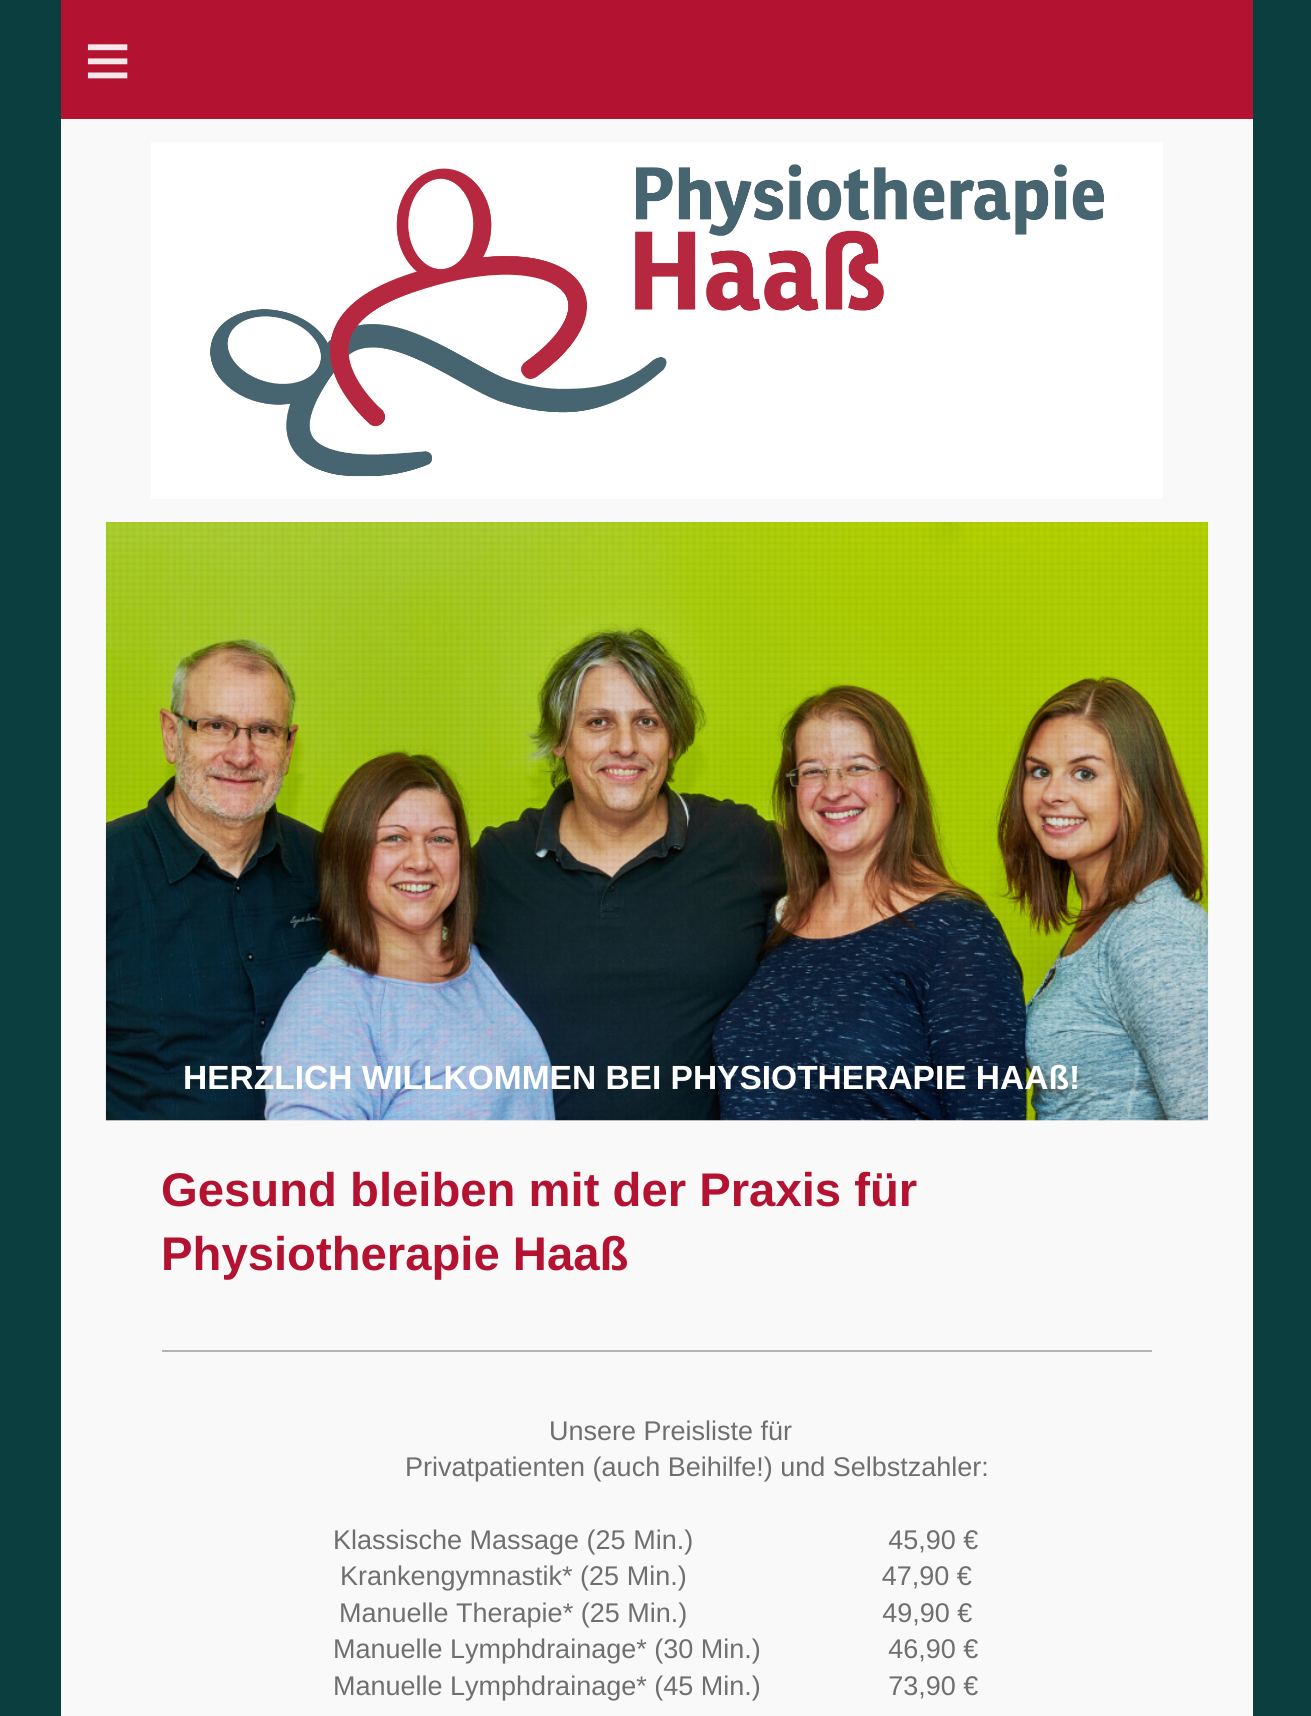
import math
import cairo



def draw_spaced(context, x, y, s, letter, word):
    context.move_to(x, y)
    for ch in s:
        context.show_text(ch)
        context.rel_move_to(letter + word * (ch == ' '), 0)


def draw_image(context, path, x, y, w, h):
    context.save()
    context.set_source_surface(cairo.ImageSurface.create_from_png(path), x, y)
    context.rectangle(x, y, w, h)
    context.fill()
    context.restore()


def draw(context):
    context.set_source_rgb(11 / 255, 62 / 255, 62 / 255)
    context.paint()
    context.set_source_rgb(179 / 255, 18 / 255, 49 / 255)
    context.rectangle(61, 0, 1192, 119)
    context.fill()
    context.set_source_rgb(249 / 255, 249 / 255, 249 / 255)
    context.rectangle(61, 119, 1192, 1597)
    context.fill()
    draw_image(context, "images/1.png", 151, 142, 1012, 357)
    context.set_source_rgb(238 / 255, 238 / 255, 238 / 255)
    context.rectangle(106, 1120, 1102, 1)
    context.fill()
    draw_image(context, "images/2.png", 105, 522, 1104, 599)
    draw_image(context, "images/3.png", 106, 522, 1102, 598)
    context.set_source_rgb(180 / 255, 180 / 255, 180 / 255)
    context.rectangle(162, 1350, 990, 2)
    context.fill()
    context.select_font_face("Liberation Sans")
    context.set_font_size(81)
    context.set_source_rgb(247 / 255, 231 / 255, 234 / 255)
    draw_spaced(context, 84, 88, "≡", 24, 0)
    context.select_font_face("Liberation Sans", cairo.FontSlant.NORMAL, cairo.FontWeight.BOLD)
    context.set_font_size(33.5)
    context.set_source_rgb(1, 1, 1)
    context.move_to(183, 1089)
    context.show_text("HERZLICH WILLKOMMEN BEI PHYSIOTHERAPIE HAAß!")
    context.set_font_size(47.25)
    context.set_source_rgb(179 / 255, 18 / 255, 49 / 255)
    context.move_to(161, 1206)
    context.show_text("Gesund bleiben mit der Praxis für")
    context.move_to(161, 1270)
    context.show_text("Physiotherapie Haaß")
    context.select_font_face("Liberation Sans")
    context.set_font_size(27)
    context.set_source_rgb(111 / 255, 111 / 255, 111 / 255)
    context.move_to(549, 1440)
    context.show_text("Unsere Preisliste für")
    context.move_to(405, 1476)
    context.show_text("Privatpatienten (auch Beihilfe!) und Selbstzahler:")
    context.move_to(333, 1549)
    context.show_text("Klassische Massage (25 Min.)                          45,90 €")
    context.move_to(340, 1585)
    context.show_text("Krankengymnastik* (25 Min.)                          47,90 €")
    context.move_to(339, 1622)
    context.show_text("Manuelle Therapie* (25 Min.)                          49,90 €")
    context.move_to(333, 1658)
    context.show_text("Manuelle Lymphdrainage* (30 Min.)                 46,90 €")
    context.move_to(333, 1695)
    context.show_text("Manuelle Lymphdrainage* (45 Min.)                 73,90 €")


surface = cairo.ImageSurface(cairo.Format.RGB24, 1311, 1716)
context = cairo.Context(surface)
options = cairo.FontOptions()
options.set_hint_metrics(cairo.HintMetrics.OFF)
options.set_hint_style(cairo.HintStyle.NONE)
context.set_font_options(options)
context.set_miter_limit(4)
draw(context)
surface.write_to_png("out.png")
